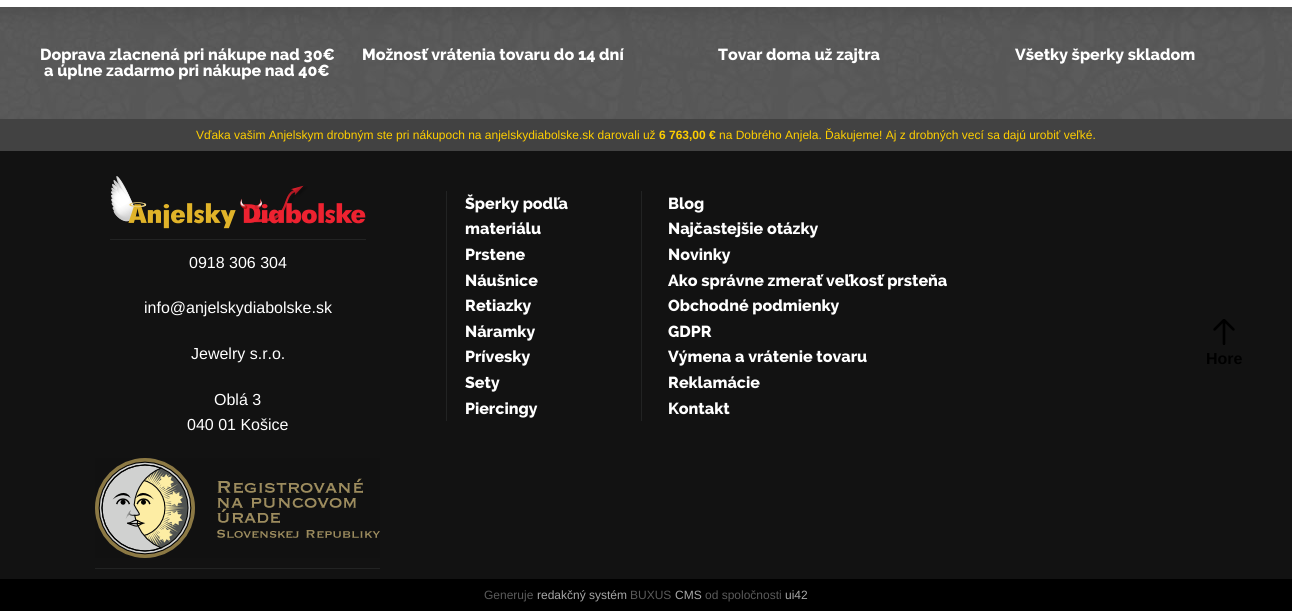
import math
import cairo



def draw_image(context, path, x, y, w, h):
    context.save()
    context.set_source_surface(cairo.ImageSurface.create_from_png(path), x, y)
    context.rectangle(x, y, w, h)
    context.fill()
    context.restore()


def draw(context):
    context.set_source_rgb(1, 1, 1)
    context.paint()
    draw_image(context, "images/1.png", 0, 7, 1292, 112)
    context.set_source_rgb(66 / 255, 66 / 255, 66 / 255)
    context.rectangle(0, 119, 1292, 32)
    context.fill()
    context.set_source_rgb(18 / 255, 18 / 255, 18 / 255)
    context.rectangle(0, 151, 1292, 428)
    context.fill()
    context.set_source_rgb(34 / 255, 35 / 255, 35 / 255)
    context.rectangle(110, 239, 256, 1)
    context.fill()
    draw_image(context, "images/2.png", 111, 176, 255, 53)
    context.rectangle(95, 568, 285, 1)
    context.fill()
    draw_image(context, "images/3.png", 95, 458, 285, 100)
    context.rectangle(641, 191, 1, 230)
    context.fill()
    context.rectangle(446, 191, 1, 230)
    context.fill()
    draw_image(context, "images/4.png", 1213, 319, 22, 26)
    context.set_source_rgb(0, 0, 0)
    context.rectangle(0, 579, 1292, 32)
    context.fill()
    context.select_font_face("Raleway ExtraBold")
    context.set_font_size(16)
    context.set_source_rgb(1, 1, 1)
    context.move_to(40, 60)
    context.show_text("Doprava zlacnená pri nákupe nad 30€")
    context.move_to(44, 76)
    context.show_text("a úplne zadarmo pri nákupe nad 40€")
    context.move_to(362, 60)
    context.show_text("Možnosť vrátenia tovaru do 14 dní")
    context.move_to(718, 60)
    context.show_text("Tovar doma už zajtra")
    context.move_to(1015, 60)
    context.show_text("Všetky šperky skladom")
    context.select_font_face("Liberation Sans")
    context.set_font_size(12)
    context.set_source_rgb(254 / 255, 206 / 255, 0)
    context.move_to(196, 139)
    context.show_text("Vďaka vašim Anjelskym drobným ste pri nákupoch na anjelskydiabolske.sk darovali už")
    context.select_font_face("Liberation Sans", cairo.FontSlant.NORMAL, cairo.FontWeight.BOLD)
    context.move_to(659, 139)
    context.show_text("6 763,00 €")
    context.select_font_face("Liberation Sans")
    context.move_to(719, 139)
    context.show_text("na Dobrého Anjela. Ďakujeme! Aj z drobných vecí sa dajú urobiť veľké.")
    context.set_font_size(16)
    context.set_source_rgb(1, 1, 1)
    context.move_to(189, 268)
    context.show_text("0918 306 304")
    context.move_to(144, 313)
    context.show_text("info@anjelskydiabolske.sk")
    context.move_to(191, 359)
    context.show_text("Jewelry s.r.o.")
    context.move_to(214, 405)
    context.show_text("Oblá 3")
    context.move_to(187, 430)
    context.show_text("040 01 Košice")
    context.select_font_face("Raleway ExtraBold")
    context.move_to(465, 209)
    context.show_text("Šperky podľa")
    context.move_to(465, 234)
    context.show_text("materiálu")
    context.move_to(465, 260)
    context.show_text("Prstene")
    context.move_to(465, 286)
    context.show_text("Náušnice")
    context.move_to(465, 311)
    context.show_text("Retiazky")
    context.move_to(465, 337)
    context.show_text("Náramky")
    context.move_to(465, 362)
    context.show_text("Prívesky")
    context.move_to(465, 388)
    context.show_text("Sety")
    context.move_to(465, 414)
    context.show_text("Piercingy")
    context.move_to(668, 209)
    context.show_text("Blog")
    context.move_to(668, 234)
    context.show_text("Najčastejšie otázky")
    context.move_to(668, 260)
    context.show_text("Novinky")
    context.move_to(668, 286)
    context.show_text("Ako správne zmerať veľkosť prsteňa")
    context.move_to(668, 311)
    context.show_text("Obchodné podmienky")
    context.move_to(668, 337)
    context.show_text("GDPR")
    context.move_to(668, 362)
    context.show_text("Výmena a vrátenie tovaru")
    context.move_to(668, 388)
    context.show_text("Reklamácie")
    context.move_to(668, 414)
    context.show_text("Kontakt")
    context.select_font_face("Liberation Sans", cairo.FontSlant.NORMAL, cairo.FontWeight.BOLD)
    context.set_source_rgb(0, 0, 0)
    context.move_to(1206, 364)
    context.show_text("Hore")
    context.select_font_face("Liberation Sans")
    context.set_font_size(12)
    context.set_source_rgb(90 / 255, 90 / 255, 90 / 255)
    context.move_to(484, 599)
    context.show_text("Generuje")
    context.set_source_rgb(167 / 255, 167 / 255, 167 / 255)
    context.move_to(537, 599)
    context.show_text("redakčný systém")
    context.set_source_rgb(90 / 255, 90 / 255, 90 / 255)
    context.move_to(630, 599)
    context.show_text("BUXUS")
    context.set_source_rgb(167 / 255, 167 / 255, 167 / 255)
    context.move_to(675, 599)
    context.show_text("CMS")
    context.set_source_rgb(90 / 255, 90 / 255, 90 / 255)
    context.move_to(705, 599)
    context.show_text("od spoločnosti")
    context.set_source_rgb(167 / 255, 167 / 255, 167 / 255)
    context.move_to(785, 599)
    context.show_text("ui42")


surface = cairo.ImageSurface(cairo.Format.RGB24, 1292, 611)
context = cairo.Context(surface)
options = cairo.FontOptions()
options.set_hint_metrics(cairo.HintMetrics.OFF)
options.set_hint_style(cairo.HintStyle.NONE)
context.set_font_options(options)
context.set_miter_limit(4)
draw(context)
surface.write_to_png("out.png")
